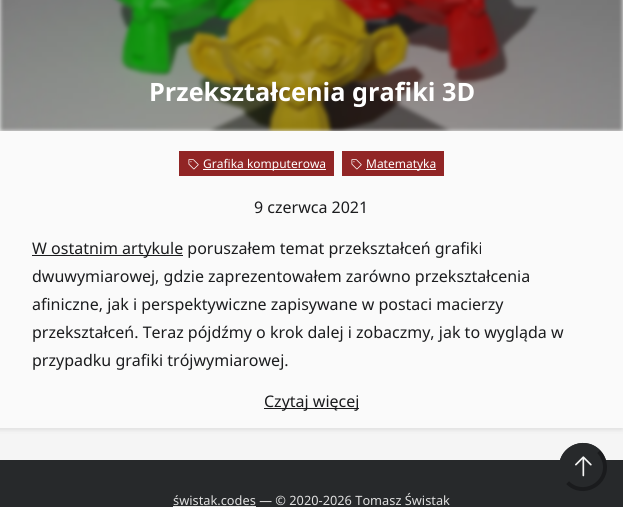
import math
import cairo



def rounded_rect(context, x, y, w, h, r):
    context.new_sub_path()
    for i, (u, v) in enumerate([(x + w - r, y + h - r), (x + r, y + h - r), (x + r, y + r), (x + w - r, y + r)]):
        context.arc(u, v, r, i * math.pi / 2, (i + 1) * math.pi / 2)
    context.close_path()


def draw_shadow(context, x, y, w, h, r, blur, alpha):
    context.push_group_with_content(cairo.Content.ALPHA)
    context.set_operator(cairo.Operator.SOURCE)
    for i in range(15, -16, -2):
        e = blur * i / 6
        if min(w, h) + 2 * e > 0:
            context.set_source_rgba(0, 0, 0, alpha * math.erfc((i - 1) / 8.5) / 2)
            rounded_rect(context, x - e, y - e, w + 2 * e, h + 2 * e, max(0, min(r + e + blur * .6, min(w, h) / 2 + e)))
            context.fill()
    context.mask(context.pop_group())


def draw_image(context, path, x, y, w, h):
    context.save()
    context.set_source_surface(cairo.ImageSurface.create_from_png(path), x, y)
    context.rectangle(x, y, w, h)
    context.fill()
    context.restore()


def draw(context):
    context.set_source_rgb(39 / 255, 41 / 255, 43 / 255)
    context.paint()
    context.set_source_rgb(245 / 255, 245 / 255, 245 / 255)
    context.rectangle(0, 0, 623, 460)
    context.fill()
    context.save()
    context.rectangle(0, 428, 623, 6)
    context.clip()
    context.set_source_rgb(225 / 255, 225 / 255, 225 / 255)
    draw_shadow(context, -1, -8, 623, 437, 0, 2.5, 1)
    context.restore()
    context.set_source_rgb(225 / 255, 225 / 255, 225 / 255)
    draw_shadow(context, -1, 132, 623, 297, 0, 2.5, 1)
    draw_image(context, "images/1.png", 0, 0, 623, 131)
    context.set_source_rgb(250 / 255, 250 / 255, 250 / 255)
    context.rectangle(0, 131, 623, 297)
    context.fill()
    context.set_source_rgb(145 / 255, 37 / 255, 37 / 255)
    context.rectangle(179, 151, 155, 25)
    context.fill()
    draw_image(context, "images/2.png", 188, 159, 11, 11)
    context.set_source_rgb(1, 1, 1)
    context.rectangle(203, 169, 123, 1)
    context.fill()
    context.set_source_rgb(145 / 255, 37 / 255, 37 / 255)
    context.rectangle(342, 151, 102, 25)
    context.fill()
    draw_image(context, "images/2.png", 351, 159, 11, 11)
    context.set_source_rgb(1, 1, 1)
    context.rectangle(366, 169, 70, 1)
    context.fill()
    context.set_source_rgb(27 / 255, 28 / 255, 30 / 255)
    context.rectangle(32, 255, 151, 1)
    context.fill()
    context.rectangle(264, 408, 95, 1)
    context.fill()
    context.set_source_rgb(39 / 255, 41 / 255, 43 / 255)
    context.arc(583, 467, 24, 0, 2 * math.pi)
    context.fill()
    context.new_path()
    context.move_to(598.5, 451.5)
    context.curve_to(601.5, 454.5, 603.5, 458.5, 604.5, 462.5)
    context.curve_to(609, 484, 582.5, 498, 567.5, 482.5)
    context.set_source_rgb(26 / 255, 27 / 255, 29 / 255)
    context.set_line_width(4)
    context.stroke()
    context.new_path()
    context.move_to(567.5, 482.5)
    context.curve_to(564.5, 479.5, 562.5, 475.5, 561.5, 471.5)
    context.curve_to(557, 450, 583.5, 436, 598.5, 451.5)
    context.set_source_rgb(39 / 255, 41 / 255, 43 / 255)
    context.stroke()
    draw_image(context, "images/3.png", 575, 456, 17, 21)
    context.set_source_rgb(225 / 255, 225 / 255, 225 / 255)
    context.rectangle(173, 506, 83, 1)
    context.fill()
    context.select_font_face("Noto Sans", cairo.FontSlant.NORMAL, cairo.FontWeight.BOLD)
    context.set_font_size(25.25)
    context.set_source_rgb(1, 1, 1)
    context.move_to(149, 101)
    context.show_text("Przekształcenia grafiki 3D")
    context.select_font_face("Noto Sans")
    context.set_font_size(12)
    context.move_to(203, 168)
    context.show_text("Grafika komputerowa")
    context.move_to(366, 168)
    context.show_text("Matematyka")
    context.set_font_size(16)
    context.set_source_rgb(27 / 255, 28 / 255, 30 / 255)
    context.move_to(254, 213)
    context.show_text("9 czerwca 2021")
    context.move_to(32, 254)
    context.show_text("W ostatnim artykule poruszałem temat przekształceń grafiki")
    context.move_to(32, 282)
    context.show_text("dwuwymiarowej, gdzie zaprezentowałem zarówno przekształcenia")
    context.move_to(32, 310)
    context.show_text("afiniczne, jak i perspektywiczne zapisywane w postaci macierzy")
    context.move_to(32, 338)
    context.show_text("przekształceń. Teraz pójdźmy o krok dalej i zobaczmy, jak to wygląda w")
    context.move_to(32, 366)
    context.show_text("przypadku grafiki trójwymiarowej.")
    context.move_to(264, 407)
    context.show_text("Czytaj więcej")
    context.set_font_size(12.8)
    context.set_source_rgb(225 / 255, 225 / 255, 225 / 255)
    context.move_to(173, 505)
    context.show_text("świstak.codes — © 2020-2026 Tomasz Świstak")


surface = cairo.ImageSurface(cairo.Format.RGB24, 623, 507)
context = cairo.Context(surface)
options = cairo.FontOptions()
options.set_hint_metrics(cairo.HintMetrics.OFF)
options.set_hint_style(cairo.HintStyle.NONE)
context.set_font_options(options)
context.set_miter_limit(4)
draw(context)
surface.write_to_png("out.png")
